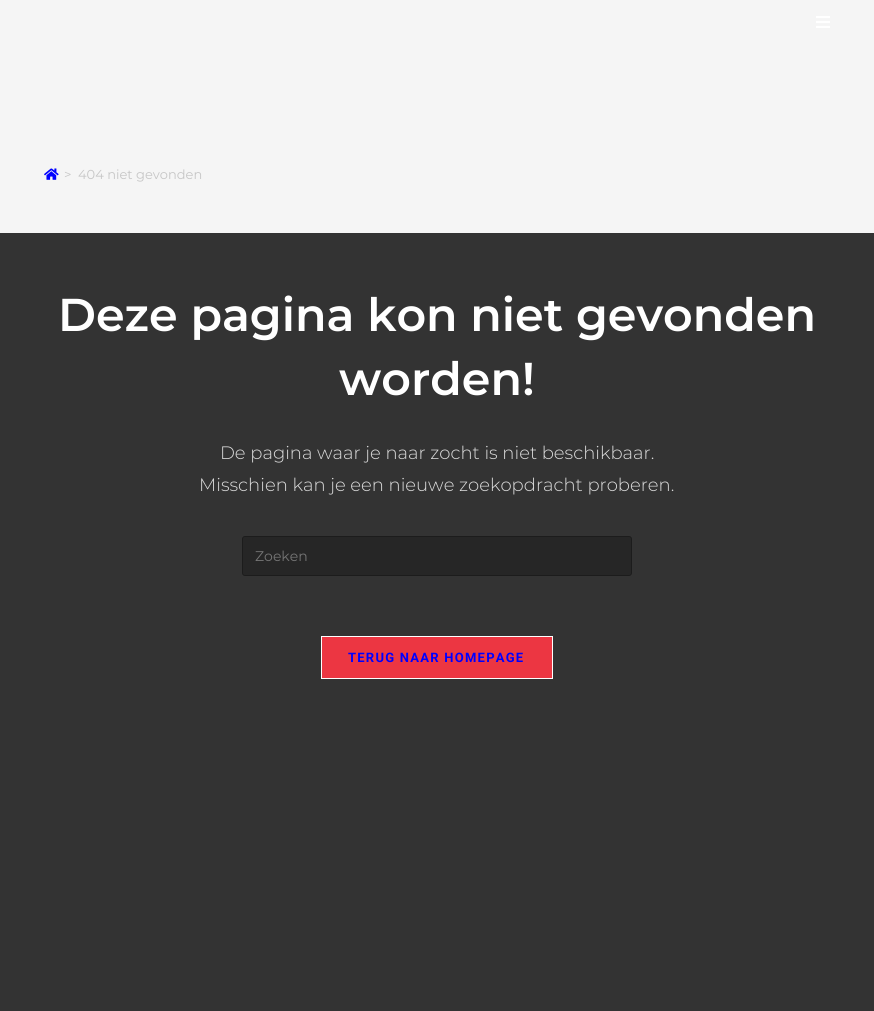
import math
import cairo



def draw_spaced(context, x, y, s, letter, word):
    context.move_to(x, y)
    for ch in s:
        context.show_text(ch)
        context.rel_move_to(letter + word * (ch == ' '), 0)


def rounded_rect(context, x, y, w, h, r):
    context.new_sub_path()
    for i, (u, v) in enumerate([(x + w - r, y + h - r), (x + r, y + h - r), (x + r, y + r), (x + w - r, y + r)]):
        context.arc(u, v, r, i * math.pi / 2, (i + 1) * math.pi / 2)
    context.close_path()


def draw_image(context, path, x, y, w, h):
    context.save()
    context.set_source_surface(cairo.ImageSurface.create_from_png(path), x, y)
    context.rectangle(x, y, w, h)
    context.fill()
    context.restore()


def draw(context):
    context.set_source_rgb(51 / 255, 51 / 255, 51 / 255)
    context.paint()
    context.set_source_rgb(245 / 255, 245 / 255, 245 / 255)
    context.rectangle(0, 0, 874, 233)
    context.fill()
    draw_image(context, "images/1.png", 816, 16, 14, 12)
    draw_image(context, "images/2.png", 44, 168, 15, 12)
    context.set_source_rgb(38 / 255, 38 / 255, 38 / 255)
    rounded_rect(context, 242.5, 536.5, 389, 39, 2.5)
    context.fill_preserve()
    context.set_source_rgb(28 / 255, 28 / 255, 28 / 255)
    context.set_line_width(1)
    context.stroke()
    context.set_source_rgb(236 / 255, 54 / 255, 66 / 255)
    context.rectangle(321.5, 636.5, 231, 42)
    context.fill_preserve()
    context.set_source_rgb(1, 1, 1)
    context.stroke()
    context.select_font_face("Montserrat")
    context.set_font_size(13)
    context.set_source_rgb(198 / 255, 198 / 255, 198 / 255)
    context.move_to(64, 179)
    context.show_text(">")
    context.move_to(78, 179)
    context.show_text("404 niet gevonden")
    context.select_font_face("Montserrat SemiBold")
    context.set_font_size(46)
    context.set_source_rgb(1, 1, 1)
    context.move_to(58, 331)
    context.show_text("Deze pagina kon niet gevonden")
    context.move_to(339, 395)
    context.show_text("worden!")
    context.select_font_face("Montserrat Light")
    context.set_font_size(18)
    context.set_source_rgb(219 / 255, 219 / 255, 219 / 255)
    context.move_to(220, 459)
    context.show_text("De pagina waar je naar zocht is niet beschikbaar.")
    context.move_to(199, 491)
    context.show_text("Misschien kan je een nieuwe zoekopdracht proberen.")
    context.select_font_face("Montserrat")
    context.set_font_size(14)
    context.set_source_rgb(117 / 255, 117 / 255, 117 / 255)
    context.move_to(255, 561)
    context.show_text("Zoeken")
    context.select_font_face("Roboto", cairo.FontSlant.NORMAL, cairo.FontWeight.BOLD)
    context.set_font_size(13)
    context.set_source_rgb(0, 0, 1)
    draw_spaced(context, 348, 662, "TERUG NAAR HOMEPAGE", 1.25, 0)


surface = cairo.ImageSurface(cairo.Format.RGB24, 874, 1011)
context = cairo.Context(surface)
options = cairo.FontOptions()
options.set_hint_metrics(cairo.HintMetrics.OFF)
options.set_hint_style(cairo.HintStyle.NONE)
context.set_font_options(options)
context.set_miter_limit(4)
draw(context)
surface.write_to_png("out.png")
